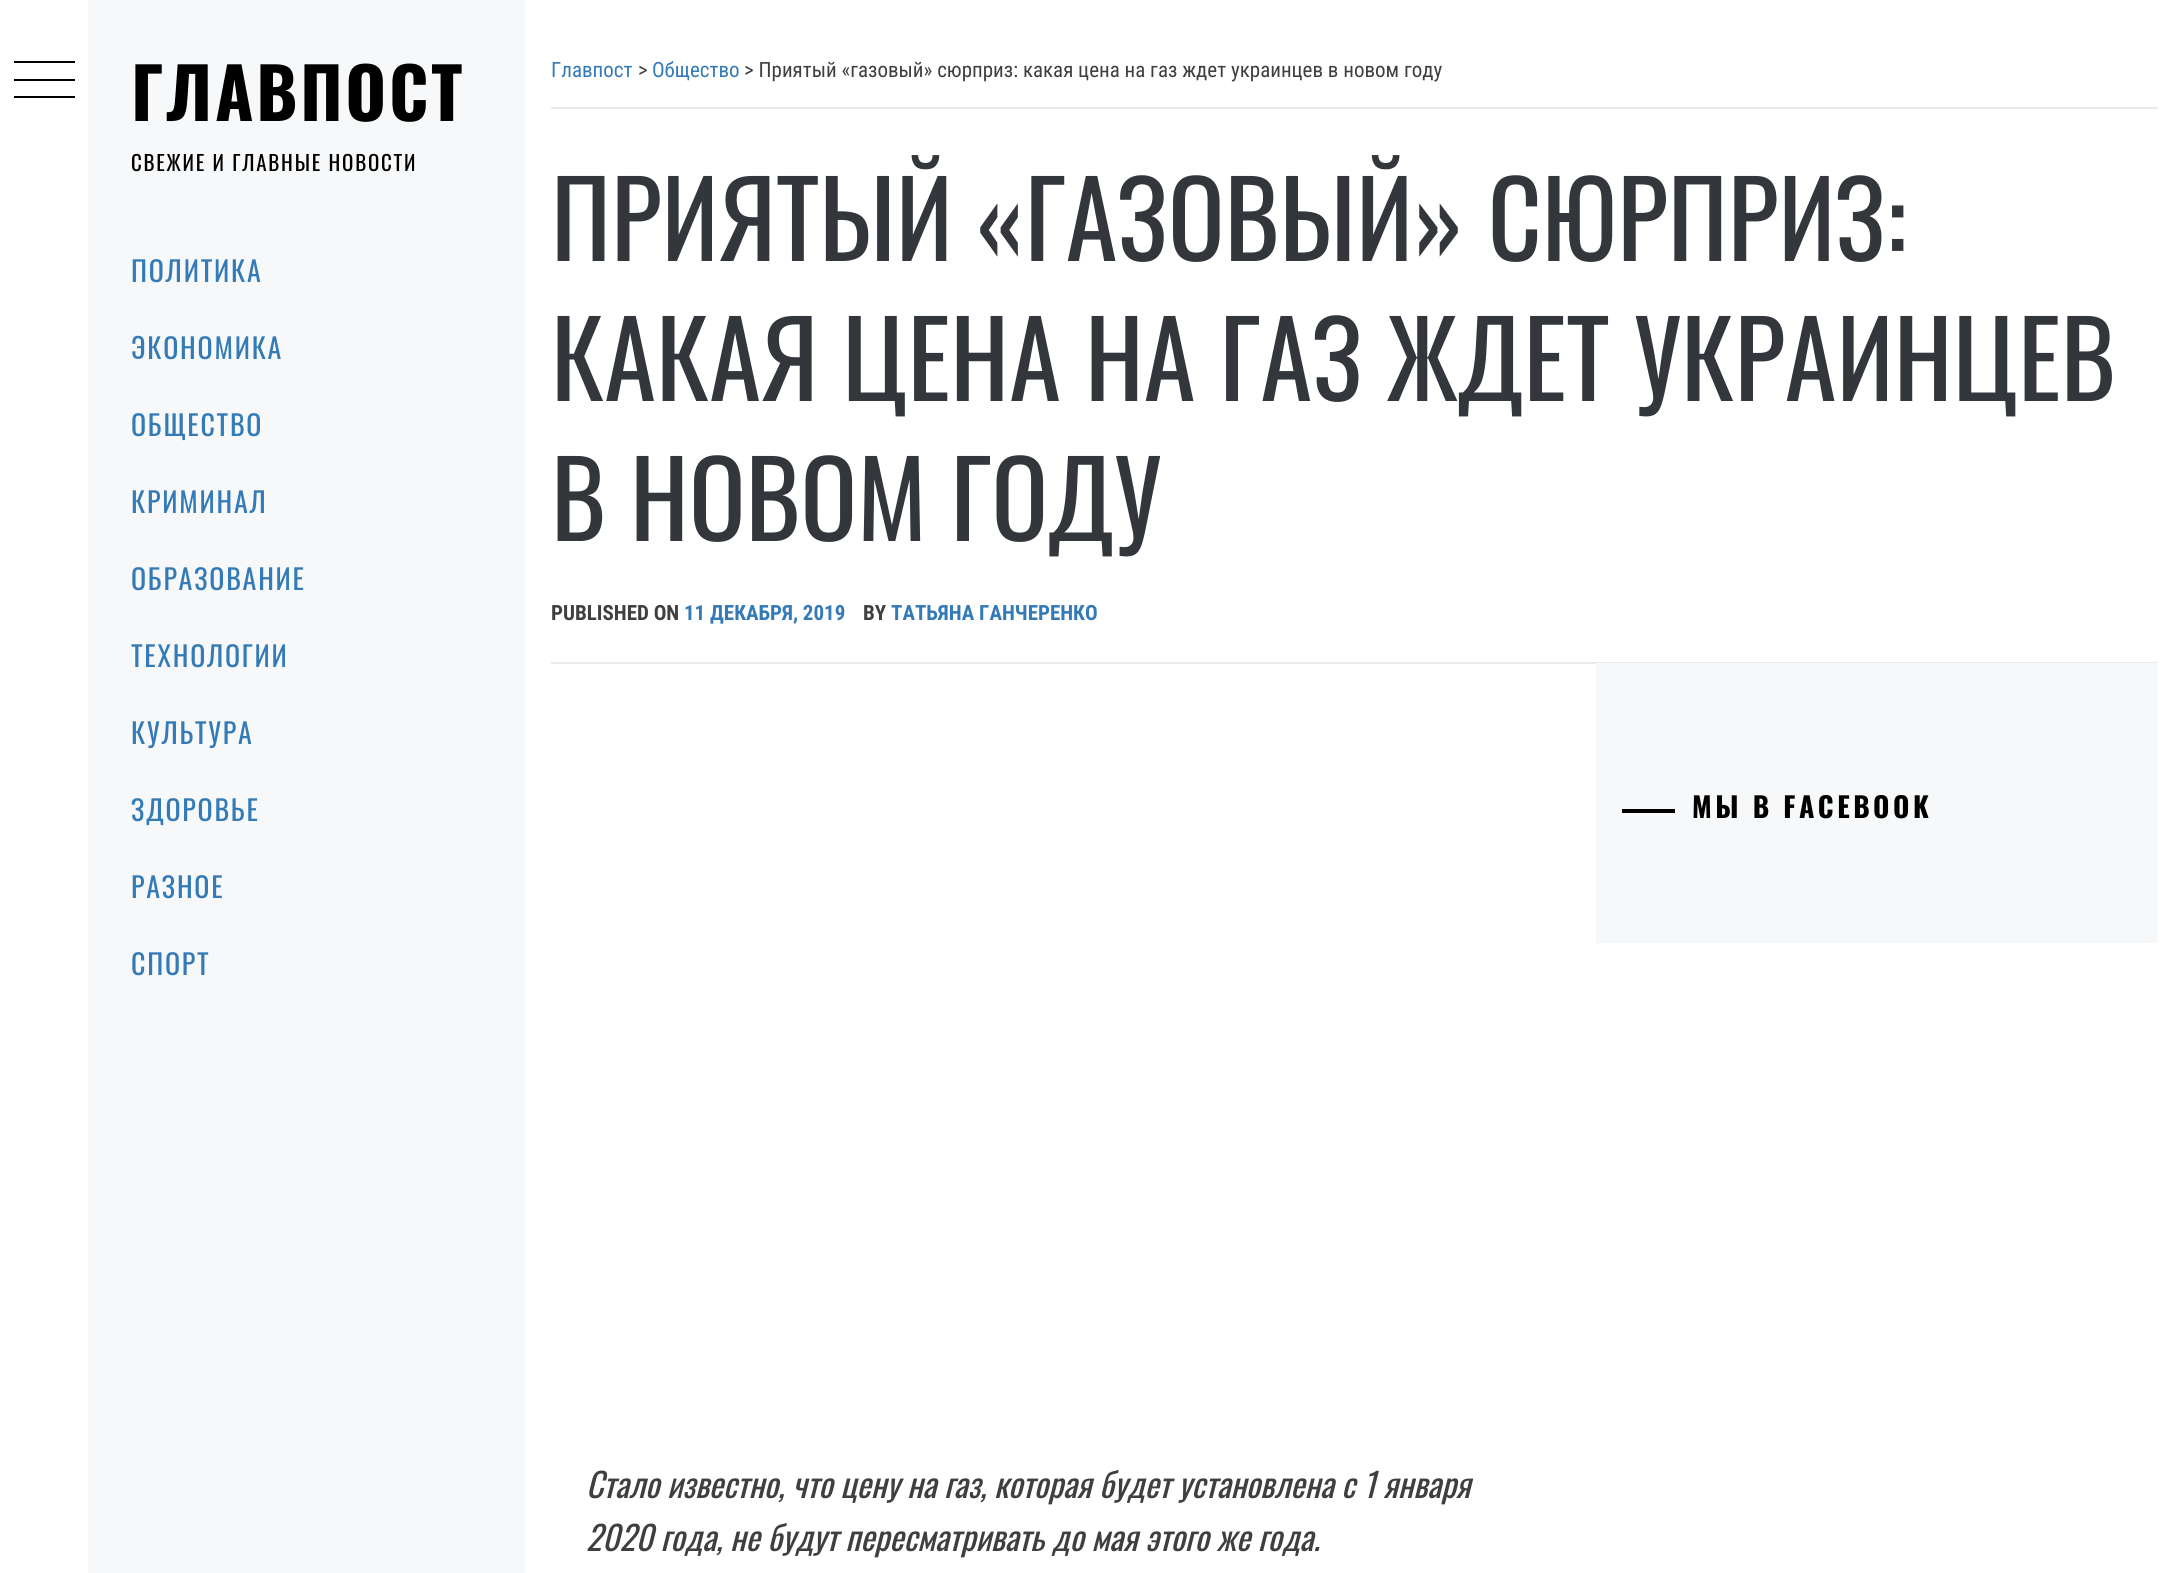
import math
import cairo



def draw_spaced(context, x, y, s, letter, word):
    context.move_to(x, y)
    for ch in s:
        context.show_text(ch)
        context.rel_move_to(letter + word * (ch == ' '), 0)


def draw(context):
    context.set_source_rgb(1, 1, 1)
    context.paint()
    context.set_source_rgb(0, 0, 0)
    context.rectangle(14, 61, 61, 2)
    context.fill()
    context.rectangle(14, 79, 61, 2)
    context.fill()
    context.rectangle(14, 96, 61, 2)
    context.fill()
    context.set_source_rgb(246 / 255, 248 / 255, 249 / 255)
    context.rectangle(88, 0, 437, 1573)
    context.fill()
    context.set_source_rgb(234 / 255, 234 / 255, 234 / 255)
    context.rectangle(551, 662, 1607, 2)
    context.fill()
    context.rectangle(551, 107, 1607, 2)
    context.fill()
    context.set_source_rgb(246 / 255, 248 / 255, 249 / 255)
    context.rectangle(1596, 663, 562, 280)
    context.fill()
    context.set_source_rgb(0, 0, 0)
    context.rectangle(1622, 809, 53, 4)
    context.fill()
    context.select_font_face("Oswald", cairo.FontSlant.NORMAL, cairo.FontWeight.BOLD)
    context.set_font_size(70)
    draw_spaced(context, 131, 121, "ГЛАВПОСТ", 2.75, 0)
    context.select_font_face("Oswald")
    context.set_font_size(21)
    draw_spaced(context, 131, 171, "СВЕЖИЕ И ГЛАВНЫЕ НОВОСТИ", 1.75, 0)
    context.set_font_size(28)
    context.set_source_rgb(51 / 255, 122 / 255, 183 / 255)
    draw_spaced(context, 131, 282, "ПОЛИТИКА", 1.75, 0)
    draw_spaced(context, 131, 359, "ЭКОНОМИКА", 1.75, 0)
    draw_spaced(context, 131, 436, "ОБЩЕСТВО", 1.75, 0)
    draw_spaced(context, 131, 513, "КРИМИНАЛ", 1.75, 0)
    draw_spaced(context, 131, 590, "ОБРАЗОВАНИЕ", 1.75, 0)
    draw_spaced(context, 131, 667, "ТЕХНОЛОГИИ", 1.75, 0)
    draw_spaced(context, 131, 744, "КУЛЬТУРА", 1.75, 0)
    draw_spaced(context, 131, 821, "ЗДОРОВЬЕ", 1.75, 0)
    draw_spaced(context, 131, 898, "РАЗНОЕ", 1.75, 0)
    draw_spaced(context, 131, 975, "СПОРТ", 1.75, 0)
    context.select_font_face("Roboto Condensed")
    context.set_font_size(21)
    context.move_to(551, 77)
    context.show_text("Главпост")
    context.set_source_rgb(62 / 255, 63 / 255, 64 / 255)
    context.move_to(638, 77)
    context.show_text(">")
    context.set_source_rgb(51 / 255, 122 / 255, 183 / 255)
    context.move_to(652, 77)
    context.show_text("Общество")
    context.set_source_rgb(62 / 255, 63 / 255, 64 / 255)
    context.move_to(744, 77)
    context.show_text("> Приятый «газовый» сюрприз: какая цена на газ ждет украинцев в новом году")
    context.select_font_face("Oswald")
    context.set_font_size(105)
    context.set_source_rgb(51 / 255, 54 / 255, 59 / 255)
    context.move_to(551, 261)
    context.show_text("ПРИЯТЫЙ «ГАЗОВЫЙ» СЮРПРИЗ:")
    context.move_to(551, 401)
    context.show_text("КАКАЯ ЦЕНА НА ГАЗ ЖДЕТ УКРАИНЦЕВ")
    context.move_to(551, 541)
    context.show_text("В НОВОМ ГОДУ")
    context.select_font_face("Roboto Condensed", cairo.FontSlant.NORMAL, cairo.FontWeight.BOLD)
    context.set_font_size(21)
    context.set_source_rgb(62 / 255, 63 / 255, 64 / 255)
    context.move_to(551, 620)
    context.show_text("PUBLISHED ON")
    context.set_source_rgb(51 / 255, 122 / 255, 183 / 255)
    context.move_to(684, 620)
    context.show_text("11 ДЕКАБРЯ, 2019")
    context.set_source_rgb(62 / 255, 63 / 255, 64 / 255)
    context.move_to(863, 620)
    context.show_text("BY")
    context.set_source_rgb(51 / 255, 122 / 255, 183 / 255)
    context.move_to(891, 620)
    context.show_text("ТАТЬЯНА ГАНЧЕРЕНКО")
    context.select_font_face("Oswald", cairo.FontSlant.NORMAL, cairo.FontWeight.BOLD)
    context.set_font_size(28)
    context.set_source_rgb(0, 0, 0)
    draw_spaced(context, 1692, 818, "МЫ В FACEBOOK", 3.5, 0)
    context.select_font_face("Oswald", cairo.FontSlant.ITALIC)
    context.set_font_size(33.6)
    context.set_source_rgb(62 / 255, 63 / 255, 64 / 255)
    context.move_to(586, 1498)
    context.show_text("Стало известно, что цену на газ, которая будет установлена с 1 января")
    context.move_to(586, 1551)
    context.show_text("2020 года, не будут пересматривать до мая этого же года.")


surface = cairo.ImageSurface(cairo.Format.RGB24, 2183, 1573)
context = cairo.Context(surface)
options = cairo.FontOptions()
options.set_hint_metrics(cairo.HintMetrics.OFF)
options.set_hint_style(cairo.HintStyle.NONE)
context.set_font_options(options)
context.set_miter_limit(4)
draw(context)
surface.write_to_png("out.png")
